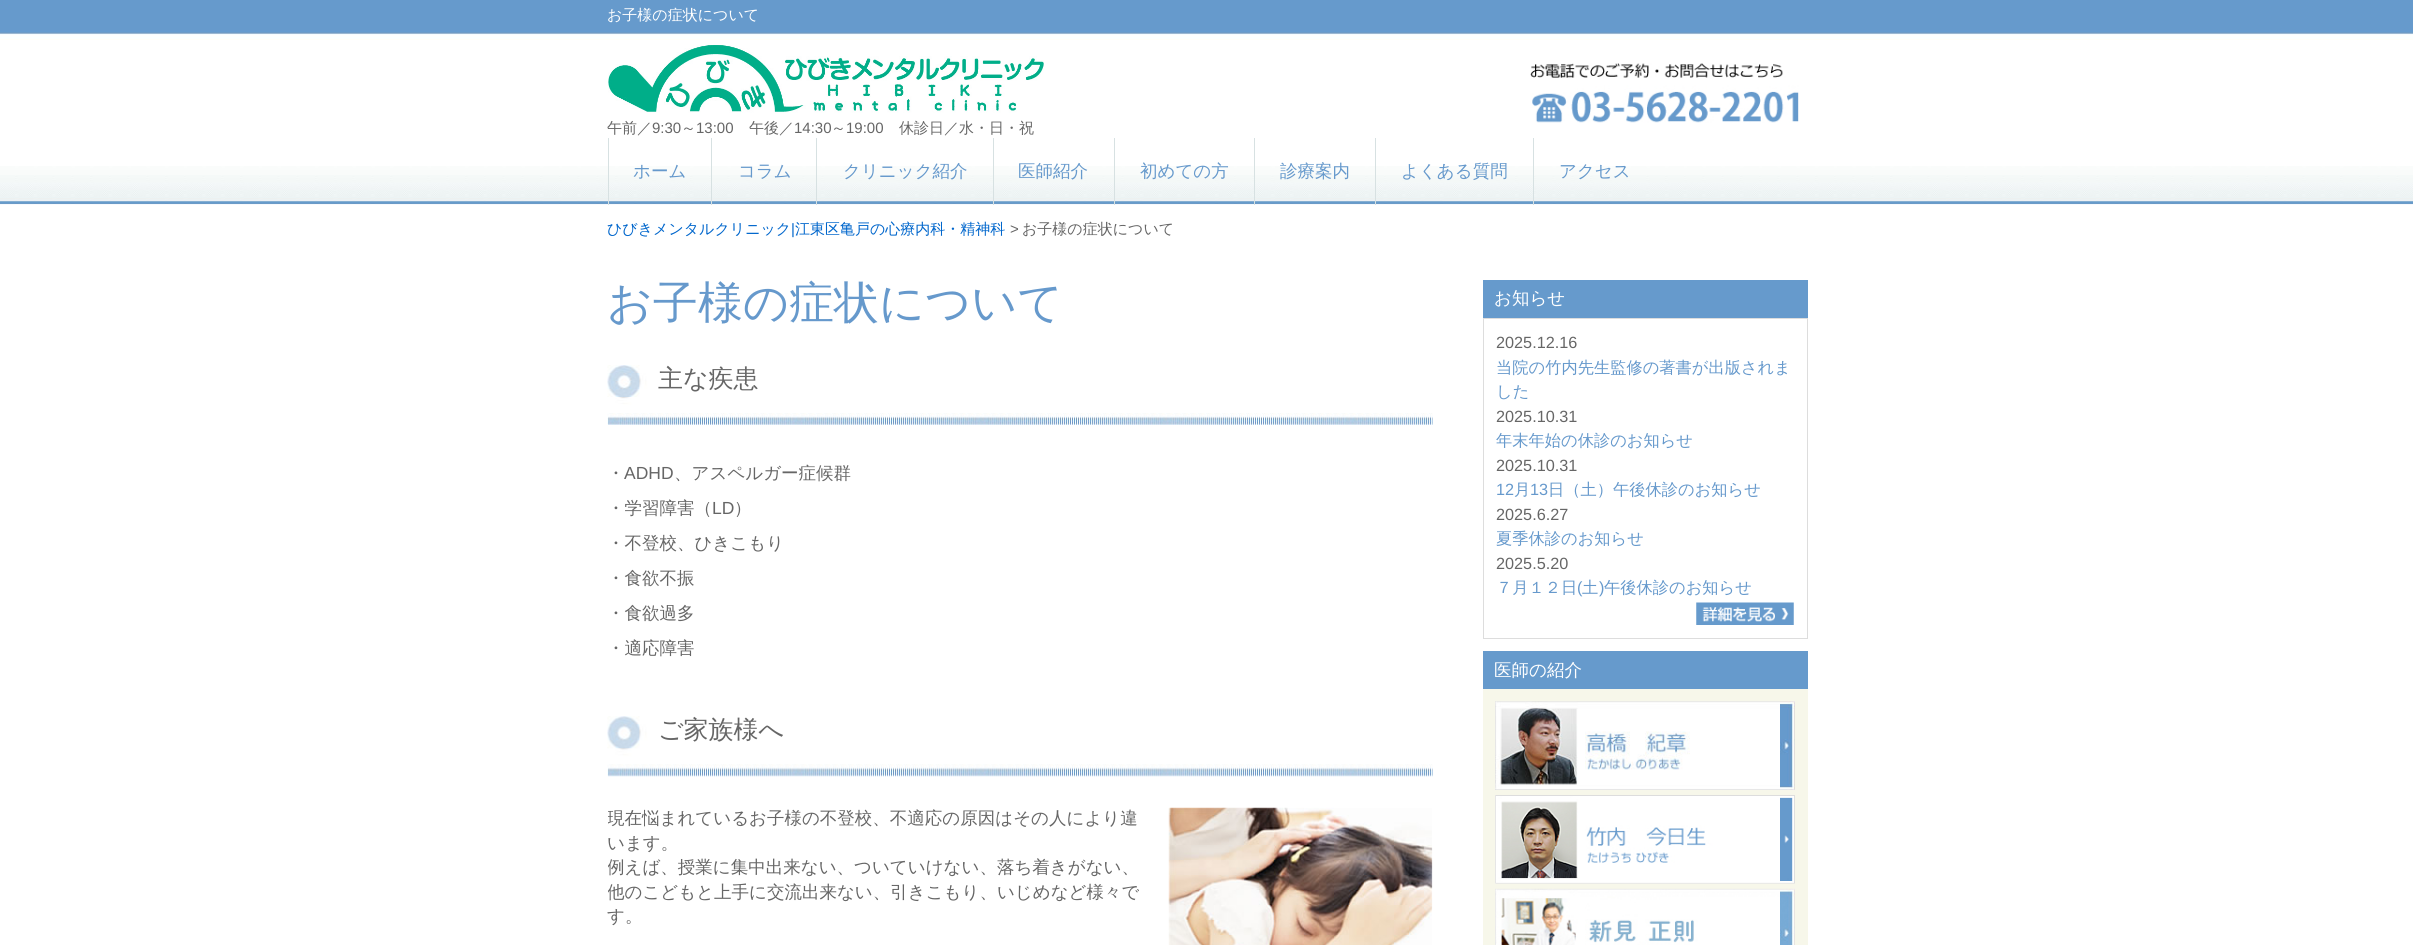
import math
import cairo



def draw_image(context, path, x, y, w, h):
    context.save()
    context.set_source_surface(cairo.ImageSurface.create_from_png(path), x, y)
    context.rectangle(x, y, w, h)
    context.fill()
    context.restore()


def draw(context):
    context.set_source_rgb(1, 1, 1)
    context.paint()
    draw_image(context, "images/1.png", 0, 0, 2413, 40)
    draw_image(context, "images/2.png", 608, 45, 436, 68)
    draw_image(context, "images/3.png", 1530, 63, 269, 60)
    draw_image(context, "images/4.png", 0, 166, 2413, 39)
    context.set_source_rgb(215 / 255, 225 / 255, 226 / 255)
    context.rectangle(608, 138, 1, 67)
    context.fill()
    context.rectangle(711, 138, 1, 67)
    context.fill()
    context.rectangle(816, 138, 1, 67)
    context.fill()
    context.rectangle(993, 138, 1, 67)
    context.fill()
    context.rectangle(1114, 138, 1, 67)
    context.fill()
    context.rectangle(1254, 138, 1, 67)
    context.fill()
    context.rectangle(1375, 138, 1, 67)
    context.fill()
    context.rectangle(1533, 138, 1, 67)
    context.fill()
    draw_image(context, "images/5.png", 607, 365, 826, 60)
    draw_image(context, "images/6.png", 607, 716, 826, 61)
    draw_image(context, "images/7.png", 1168, 807, 265, 138)
    context.set_source_rgb(102 / 255, 154 / 255, 204 / 255)
    context.rectangle(1483, 280, 325, 38)
    context.fill()
    context.rectangle(1483.5, 318.5, 324, 320)
    context.set_source_rgb(221 / 255, 221 / 255, 221 / 255)
    context.set_line_width(1)
    context.stroke()
    draw_image(context, "images/8.png", 1696, 602, 98, 23)
    context.set_source_rgb(102 / 255, 154 / 255, 204 / 255)
    context.rectangle(1483, 651, 325, 38)
    context.fill()
    context.set_source_rgb(247 / 255, 247 / 255, 234 / 255)
    context.rectangle(1483, 689, 325, 256)
    context.fill()
    draw_image(context, "images/9.png", 1495, 701, 300, 89)
    draw_image(context, "images/10.png", 1495, 795, 300, 89)
    draw_image(context, "images/11.png", 1495, 888, 300, 57)
    context.select_font_face("WenQuanYi Zen Hei Medium")
    context.set_font_size(15)
    context.set_source_rgb(1, 1, 1)
    context.move_to(607, 20)
    context.show_text("お子様の症状について")
    context.set_source_rgb(102 / 255, 102 / 255, 102 / 255)
    context.move_to(607, 133)
    context.show_text("午前／")
    context.select_font_face("Liberation Sans")
    context.move_to(652, 133)
    context.show_text("9:30")
    context.select_font_face("WenQuanYi Zen Hei Medium")
    context.move_to(681, 133)
    context.show_text("～")
    context.select_font_face("Liberation Sans")
    context.move_to(696, 133)
    context.show_text("13:00")
    context.select_font_face("WenQuanYi Zen Hei Medium")
    context.move_to(749, 133)
    context.show_text("午後／")
    context.select_font_face("Liberation Sans")
    context.move_to(794, 133)
    context.show_text("14:30")
    context.select_font_face("WenQuanYi Zen Hei Medium")
    context.move_to(831, 133)
    context.show_text("～")
    context.select_font_face("Liberation Sans")
    context.move_to(846, 133)
    context.show_text("19:00")
    context.select_font_face("WenQuanYi Zen Hei Medium")
    context.move_to(899, 133)
    context.show_text("休診日／水・日・祝")
    context.set_font_size(17.5)
    context.set_source_rgb(102 / 255, 153 / 255, 204 / 255)
    context.move_to(633, 177)
    context.show_text("ホーム")
    context.move_to(738, 177)
    context.show_text("コラム")
    context.move_to(843, 177)
    context.show_text("クリニック紹介")
    context.move_to(1018, 177)
    context.show_text("医師紹介")
    context.move_to(1140, 177)
    context.show_text("初めての方")
    context.move_to(1280, 177)
    context.show_text("診療案内")
    context.move_to(1401, 177)
    context.show_text("よくある質問")
    context.move_to(1559, 177)
    context.show_text("アクセス")
    context.set_font_size(15)
    context.set_source_rgb(0, 102 / 255, 204 / 255)
    context.move_to(607, 234)
    context.show_text("ひびきメンタルクリニック")
    context.select_font_face("Liberation Sans")
    context.move_to(791, 234)
    context.show_text("|")
    context.select_font_face("WenQuanYi Zen Hei Medium")
    context.move_to(795, 234)
    context.show_text("江東区亀戸の心療内科・精神科")
    context.select_font_face("Liberation Sans")
    context.set_source_rgb(102 / 255, 102 / 255, 102 / 255)
    context.move_to(1010, 234)
    context.show_text(">")
    context.select_font_face("WenQuanYi Zen Hei Medium")
    context.move_to(1022, 234)
    context.show_text("お子様の症状について")
    context.set_font_size(45)
    context.set_source_rgb(102 / 255, 153 / 255, 204 / 255)
    context.move_to(607, 318)
    context.show_text("お子様の症状について")
    context.set_font_size(25)
    context.set_source_rgb(102 / 255, 102 / 255, 102 / 255)
    context.move_to(658, 387)
    context.show_text("主な疾患")
    context.set_font_size(17.5)
    context.move_to(607, 479)
    context.show_text("・")
    context.select_font_face("Liberation Sans")
    context.move_to(624, 479)
    context.show_text("ADHD")
    context.select_font_face("WenQuanYi Zen Hei Medium")
    context.move_to(674, 479)
    context.show_text("、アスペルガー症候群")
    context.move_to(607, 514)
    context.show_text("・学習障害（")
    context.select_font_face("Liberation Sans")
    context.move_to(712, 514)
    context.show_text("LD")
    context.select_font_face("WenQuanYi Zen Hei Medium")
    context.move_to(734, 514)
    context.show_text("）")
    context.move_to(607, 549)
    context.show_text("・不登校、ひきこもり")
    context.move_to(607, 584)
    context.show_text("・食欲不振")
    context.move_to(607, 619)
    context.show_text("・食欲過多")
    context.move_to(607, 654)
    context.show_text("・適応障害")
    context.set_font_size(25)
    context.move_to(658, 738)
    context.show_text("ご家族様へ")
    context.save()
    context.rectangle(608, 808, 825, 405)
    context.clip()
    context.set_font_size(17.5)
    context.move_to(607, 824)
    context.show_text("現在悩まれているお子様の不登校、不適応の原因はその人により違")
    context.restore()
    context.set_font_size(17.5)
    context.move_to(607, 849)
    context.show_text("います。")
    context.save()
    context.rectangle(608, 808, 825, 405)
    context.clip()
    context.move_to(607, 873)
    context.show_text("例えば、授業に集中出来ない、ついていけない、落ち着きがない、")
    context.move_to(607, 898)
    context.show_text("他のこどもと上手に交流出来ない、引きこもり、いじめなど様々で")
    context.restore()
    context.move_to(607, 922)
    context.show_text("す。")
    context.set_source_rgb(1, 1, 1)
    context.move_to(1494, 304)
    context.show_text("お知らせ")
    context.select_font_face("Liberation Sans")
    context.set_font_size(16.25)
    context.set_source_rgb(102 / 255, 102 / 255, 102 / 255)
    context.move_to(1496, 348)
    context.show_text("2025.12.16")
    context.select_font_face("WenQuanYi Zen Hei Medium")
    context.set_source_rgb(102 / 255, 153 / 255, 204 / 255)
    context.move_to(1496, 373)
    context.show_text("当院の竹内先生監修の著書が出版されま")
    context.move_to(1496, 397)
    context.show_text("した")
    context.select_font_face("Liberation Sans")
    context.set_source_rgb(102 / 255, 102 / 255, 102 / 255)
    context.move_to(1496, 422)
    context.show_text("2025.10.31")
    context.select_font_face("WenQuanYi Zen Hei Medium")
    context.set_source_rgb(102 / 255, 153 / 255, 204 / 255)
    context.move_to(1496, 446)
    context.show_text("年末年始の休診のお知らせ")
    context.select_font_face("Liberation Sans")
    context.set_source_rgb(102 / 255, 102 / 255, 102 / 255)
    context.move_to(1496, 471)
    context.show_text("2025.10.31")
    context.set_source_rgb(102 / 255, 153 / 255, 204 / 255)
    context.move_to(1496, 495)
    context.show_text("12")
    context.select_font_face("WenQuanYi Zen Hei Medium")
    context.move_to(1514, 495)
    context.show_text("月")
    context.select_font_face("Liberation Sans")
    context.move_to(1530, 495)
    context.show_text("13")
    context.select_font_face("WenQuanYi Zen Hei Medium")
    context.move_to(1548, 495)
    context.show_text("日（土）午後休診のお知らせ")
    context.select_font_face("Liberation Sans")
    context.set_source_rgb(102 / 255, 102 / 255, 102 / 255)
    context.move_to(1496, 520)
    context.show_text("2025.6.27")
    context.select_font_face("WenQuanYi Zen Hei Medium")
    context.set_source_rgb(102 / 255, 153 / 255, 204 / 255)
    context.move_to(1496, 544)
    context.show_text("夏季休診のお知らせ")
    context.select_font_face("Liberation Sans")
    context.set_source_rgb(102 / 255, 102 / 255, 102 / 255)
    context.move_to(1496, 569)
    context.show_text("2025.5.20")
    context.select_font_face("WenQuanYi Zen Hei Medium")
    context.set_source_rgb(102 / 255, 153 / 255, 204 / 255)
    context.move_to(1496, 593)
    context.show_text("７月１２日")
    context.select_font_face("Liberation Sans")
    context.move_to(1577, 593)
    context.show_text("(")
    context.select_font_face("WenQuanYi Zen Hei Medium")
    context.move_to(1582, 593)
    context.show_text("土")
    context.select_font_face("Liberation Sans")
    context.move_to(1599, 593)
    context.show_text(")")
    context.select_font_face("WenQuanYi Zen Hei Medium")
    context.move_to(1604, 593)
    context.show_text("午後休診のお知らせ")
    context.set_font_size(17.5)
    context.set_source_rgb(1, 1, 1)
    context.move_to(1494, 676)
    context.show_text("医師の紹介")


surface = cairo.ImageSurface(cairo.Format.RGB24, 2413, 945)
context = cairo.Context(surface)
options = cairo.FontOptions()
options.set_hint_metrics(cairo.HintMetrics.OFF)
options.set_hint_style(cairo.HintStyle.NONE)
context.set_font_options(options)
context.set_miter_limit(4)
draw(context)
surface.write_to_png("out.png")
